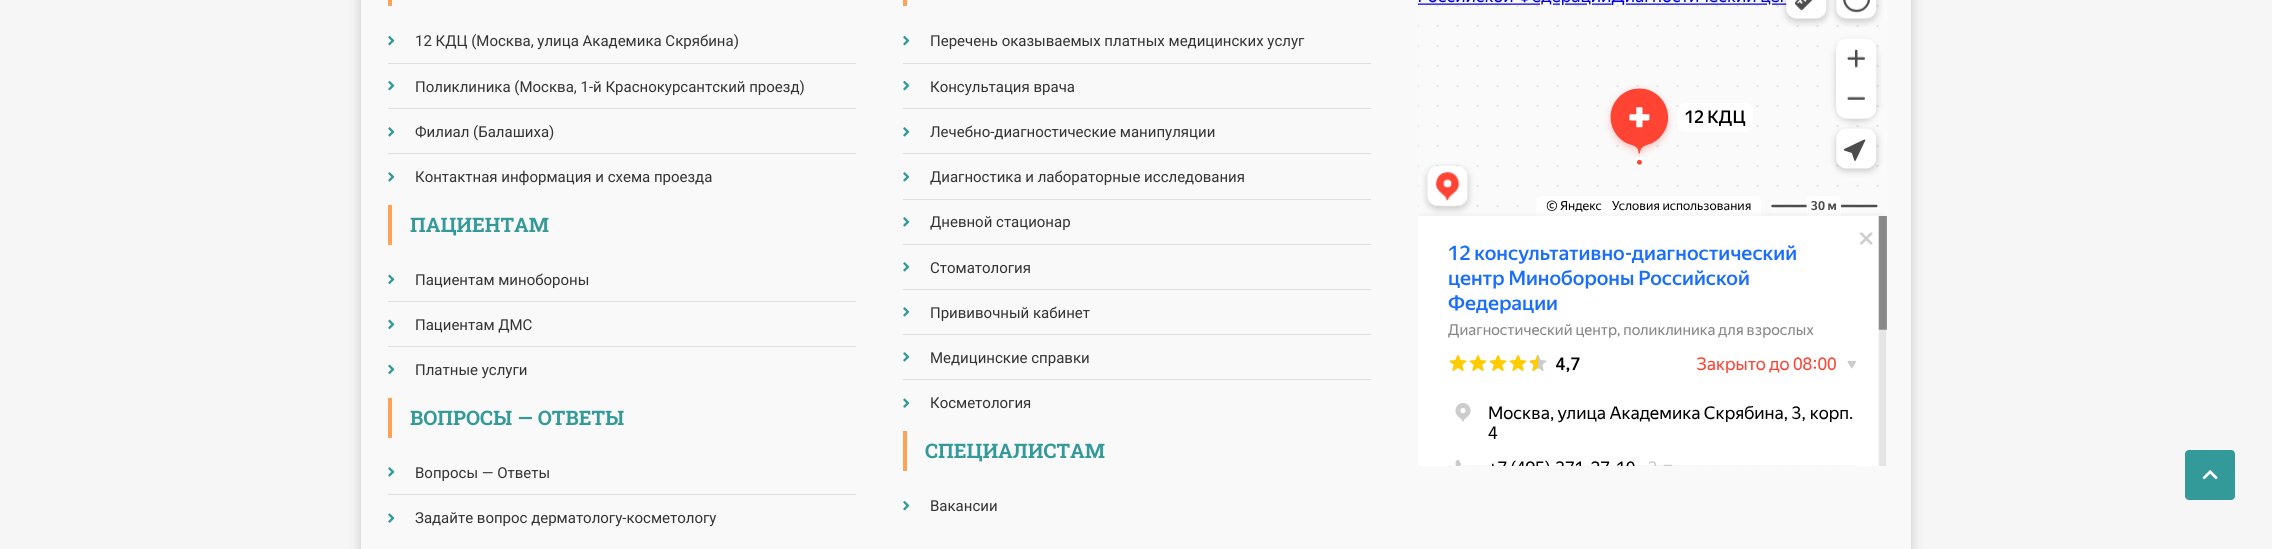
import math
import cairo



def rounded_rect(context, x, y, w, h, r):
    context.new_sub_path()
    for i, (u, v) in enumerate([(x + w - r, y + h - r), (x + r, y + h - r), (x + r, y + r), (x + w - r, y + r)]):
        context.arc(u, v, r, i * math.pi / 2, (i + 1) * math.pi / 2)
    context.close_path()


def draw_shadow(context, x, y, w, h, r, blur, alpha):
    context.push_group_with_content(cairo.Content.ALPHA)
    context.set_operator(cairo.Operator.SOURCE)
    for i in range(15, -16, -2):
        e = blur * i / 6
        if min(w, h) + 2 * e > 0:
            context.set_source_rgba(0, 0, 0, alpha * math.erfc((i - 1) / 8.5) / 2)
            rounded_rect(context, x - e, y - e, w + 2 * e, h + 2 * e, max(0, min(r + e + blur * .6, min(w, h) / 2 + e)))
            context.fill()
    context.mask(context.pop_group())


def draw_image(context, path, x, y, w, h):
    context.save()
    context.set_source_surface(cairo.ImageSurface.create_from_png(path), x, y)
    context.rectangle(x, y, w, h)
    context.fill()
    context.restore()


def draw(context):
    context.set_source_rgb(246 / 255, 246 / 255, 246 / 255)
    context.paint()
    context.set_source_rgb(199 / 255, 199 / 255, 199 / 255)
    draw_shadow(context, 361, -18, 1550, 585, 0, 6, 1)
    context.set_source_rgb(249 / 255, 249 / 255, 249 / 255)
    context.rectangle(361, 0, 1550, 549)
    context.fill()
    context.set_source_rgb(1, 162 / 255, 85 / 255)
    context.rectangle(388, 0, 4, 6)
    context.fill()
    context.set_source_rgb(224 / 255, 224 / 255, 224 / 255)
    context.rectangle(388, 63, 468, 1)
    context.fill()
    draw_image(context, "images/1.png", 388, 36, 7, 10)
    context.rectangle(388, 108, 468, 1)
    context.fill()
    draw_image(context, "images/1.png", 388, 81, 7, 10)
    context.rectangle(388, 153, 468, 1)
    context.fill()
    draw_image(context, "images/2.png", 388, 127, 7, 10)
    draw_image(context, "images/2.png", 388, 172, 7, 10)
    context.set_source_rgb(1, 162 / 255, 85 / 255)
    context.rectangle(388, 205, 4, 40)
    context.fill()
    context.set_source_rgb(224 / 255, 224 / 255, 224 / 255)
    context.rectangle(388, 301, 468, 1)
    context.fill()
    draw_image(context, "images/3.png", 388, 274, 7, 10)
    context.rectangle(388, 346, 468, 1)
    context.fill()
    draw_image(context, "images/3.png", 388, 319, 7, 10)
    draw_image(context, "images/3.png", 388, 364, 7, 10)
    context.set_source_rgb(1, 162 / 255, 85 / 255)
    context.rectangle(388, 398, 4, 40)
    context.fill()
    context.set_source_rgb(224 / 255, 224 / 255, 224 / 255)
    context.rectangle(388, 494, 468, 1)
    context.fill()
    draw_image(context, "images/2.png", 388, 467, 7, 10)
    draw_image(context, "images/4.png", 388, 513, 7, 10)
    context.set_source_rgb(1, 162 / 255, 85 / 255)
    context.rectangle(903, 0, 4, 6)
    context.fill()
    context.set_source_rgb(224 / 255, 224 / 255, 224 / 255)
    context.rectangle(903, 63, 468, 1)
    context.fill()
    draw_image(context, "images/1.png", 903, 36, 7, 10)
    context.rectangle(903, 108, 468, 1)
    context.fill()
    draw_image(context, "images/1.png", 903, 81, 7, 10)
    context.rectangle(903, 153, 468, 1)
    context.fill()
    draw_image(context, "images/2.png", 903, 127, 7, 10)
    context.rectangle(903, 199, 468, 1)
    context.fill()
    draw_image(context, "images/2.png", 903, 172, 7, 10)
    context.rectangle(903, 244, 468, 1)
    context.fill()
    draw_image(context, "images/2.png", 903, 217, 7, 10)
    context.rectangle(903, 289, 468, 1)
    context.fill()
    draw_image(context, "images/2.png", 903, 262, 7, 10)
    context.rectangle(903, 334, 468, 1)
    context.fill()
    draw_image(context, "images/2.png", 903, 307, 7, 10)
    context.rectangle(903, 379, 468, 1)
    context.fill()
    draw_image(context, "images/2.png", 903, 352, 7, 10)
    draw_image(context, "images/4.png", 903, 398, 7, 10)
    context.set_source_rgb(1, 162 / 255, 85 / 255)
    context.rectangle(903, 431, 4, 40)
    context.fill()
    draw_image(context, "images/1.png", 903, 501, 7, 10)
    draw_image(context, "images/5.png", 1418, 0, 469, 466)
    context.set_source_rgb(51 / 255, 153 / 255, 153 / 255)
    rounded_rect(context, 2185, 450, 50, 50, 4)
    context.fill()
    draw_image(context, "images/6.png", 2202, 470, 16, 10)
    context.select_font_face("Roboto")
    context.set_font_size(15)
    context.set_source_rgb(51 / 255, 51 / 255, 51 / 255)
    context.move_to(415, 46)
    context.show_text("12 КДЦ (Москва, улица Академика Скрябина)")
    context.move_to(415, 92)
    context.show_text("Поликлиника (Москва, 1-й Краснокурсантский проезд)")
    context.move_to(415, 137)
    context.show_text("Филиал (Балашиха)")
    context.move_to(415, 182)
    context.show_text("Контактная информация и схема проезда")
    context.select_font_face("Roboto Slab", cairo.FontSlant.NORMAL, cairo.FontWeight.BOLD)
    context.set_font_size(20)
    context.set_source_rgb(51 / 255, 153 / 255, 153 / 255)
    context.move_to(410, 232)
    context.show_text("ПАЦИЕНТАМ")
    context.select_font_face("Roboto")
    context.set_font_size(15)
    context.set_source_rgb(51 / 255, 51 / 255, 51 / 255)
    context.move_to(415, 285)
    context.show_text("Пациентам минобороны")
    context.move_to(415, 330)
    context.show_text("Пациентам ДМС")
    context.move_to(415, 375)
    context.show_text("Платные услуги")
    context.select_font_face("Roboto Slab", cairo.FontSlant.NORMAL, cairo.FontWeight.BOLD)
    context.set_font_size(20)
    context.set_source_rgb(51 / 255, 153 / 255, 153 / 255)
    context.move_to(410, 425)
    context.show_text("ВОПРОСЫ — ОТВЕТЫ")
    context.select_font_face("Roboto")
    context.set_font_size(15)
    context.set_source_rgb(51 / 255, 51 / 255, 51 / 255)
    context.move_to(415, 478)
    context.show_text("Вопросы — Ответы")
    context.move_to(415, 523)
    context.show_text("Задайте вопрос дерматологу-косметологу")
    context.move_to(930, 46)
    context.show_text("Перечень оказываемых платных медицинских услуг")
    context.move_to(930, 92)
    context.show_text("Консультация врача")
    context.move_to(930, 137)
    context.show_text("Лечебно-диагностические манипуляции")
    context.move_to(930, 182)
    context.show_text("Диагностика и лабораторные исследования")
    context.move_to(930, 227)
    context.show_text("Дневной стационар")
    context.move_to(930, 273)
    context.show_text("Стоматология")
    context.move_to(930, 318)
    context.show_text("Прививочный кабинет")
    context.move_to(930, 363)
    context.show_text("Медицинские справки")
    context.move_to(930, 408)
    context.show_text("Косметология")
    context.select_font_face("Roboto Slab", cairo.FontSlant.NORMAL, cairo.FontWeight.BOLD)
    context.set_font_size(20)
    context.set_source_rgb(51 / 255, 153 / 255, 153 / 255)
    context.move_to(925, 458)
    context.show_text("СПЕЦИАЛИСТАМ")
    context.select_font_face("Roboto")
    context.set_font_size(15)
    context.set_source_rgb(51 / 255, 51 / 255, 51 / 255)
    context.move_to(930, 511)
    context.show_text("Вакансии")


surface = cairo.ImageSurface(cairo.Format.RGB24, 2272, 549)
context = cairo.Context(surface)
options = cairo.FontOptions()
options.set_hint_metrics(cairo.HintMetrics.OFF)
options.set_hint_style(cairo.HintStyle.NONE)
context.set_font_options(options)
context.set_miter_limit(4)
draw(context)
surface.write_to_png("out.png")
